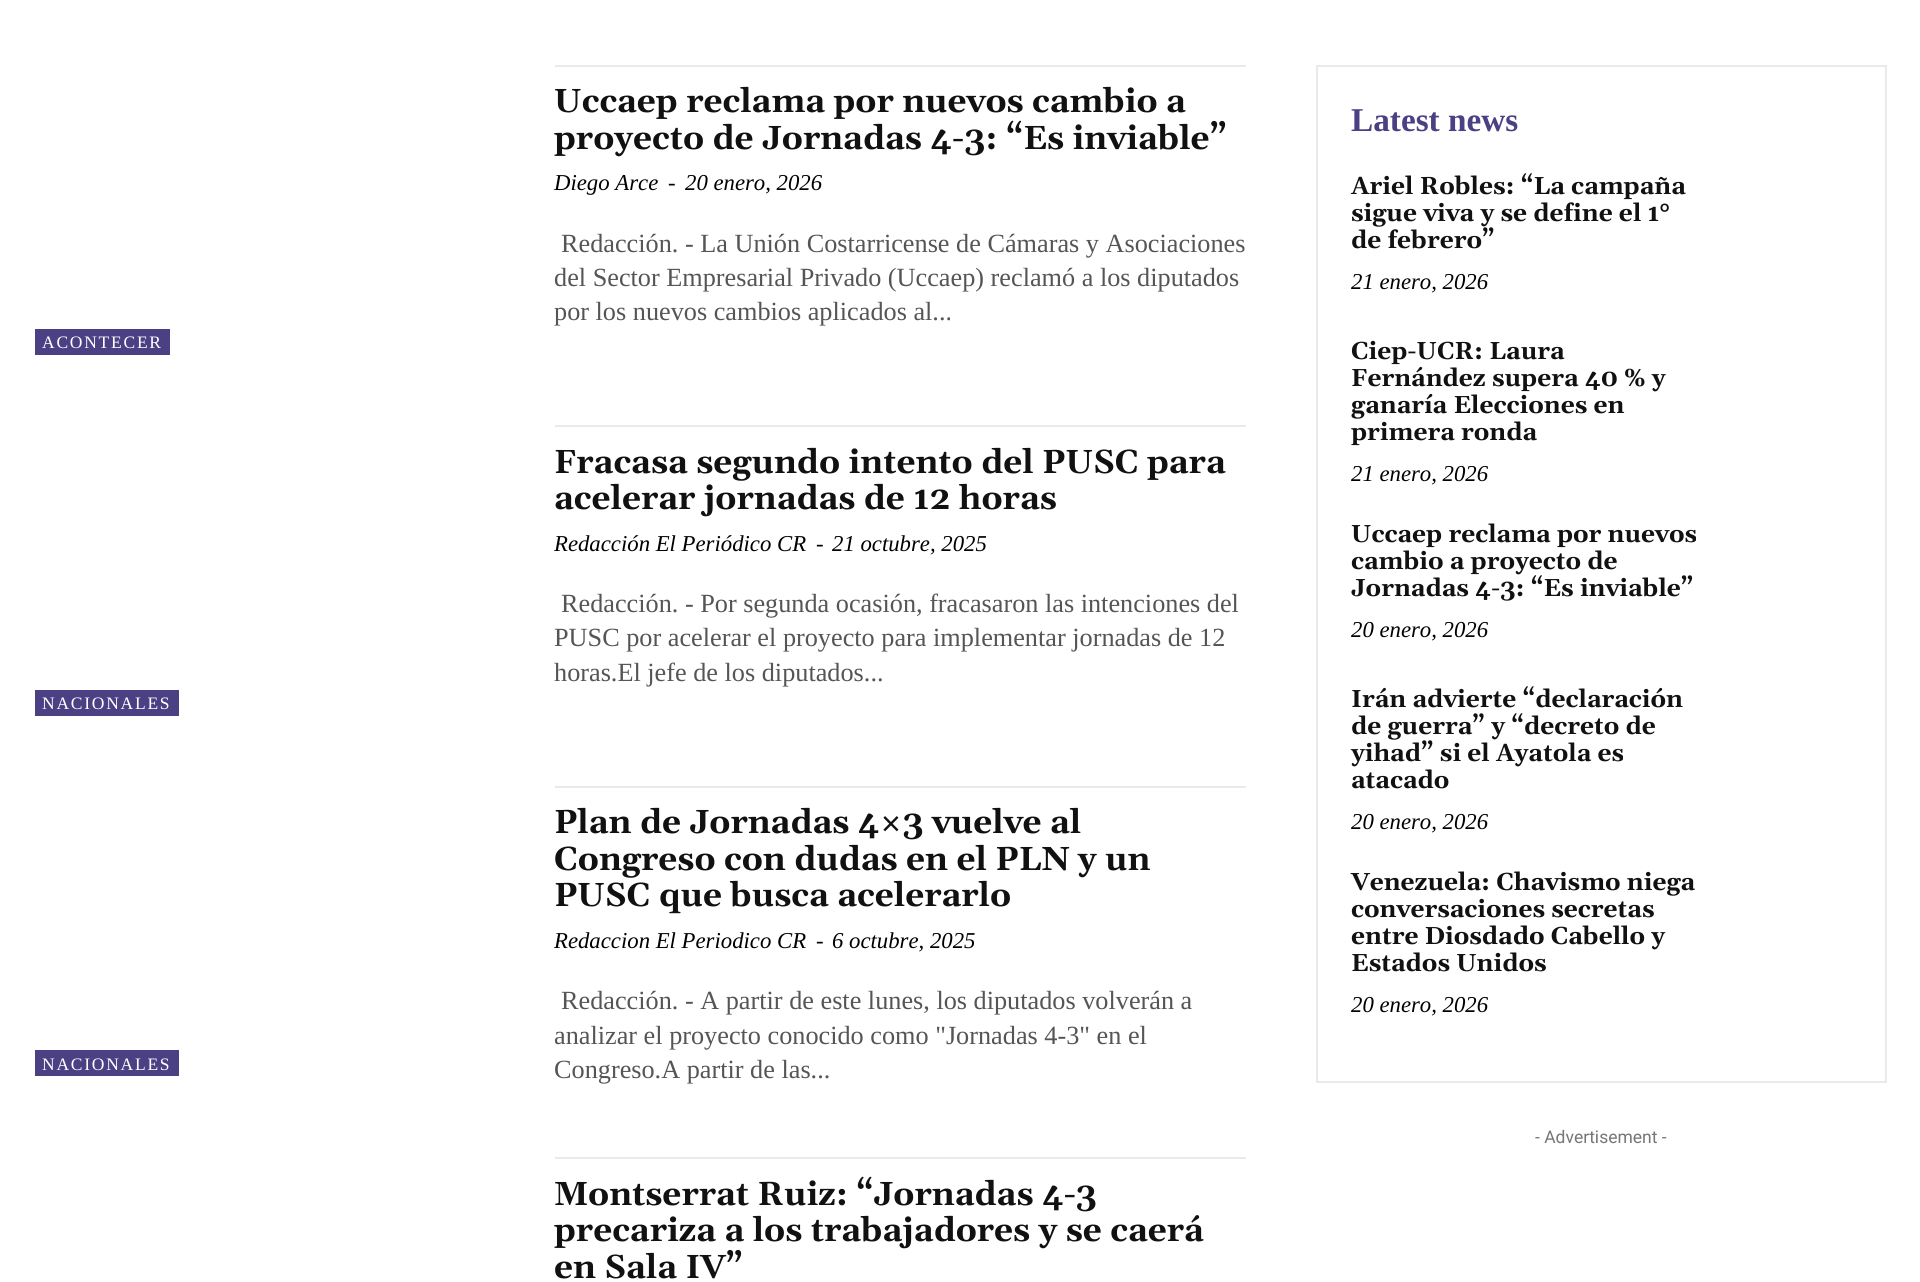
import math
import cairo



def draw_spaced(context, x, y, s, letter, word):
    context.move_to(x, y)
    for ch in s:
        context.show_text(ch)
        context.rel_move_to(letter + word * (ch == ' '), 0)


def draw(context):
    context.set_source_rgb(1, 1, 1)
    context.paint()
    context.set_source_rgb(234 / 255, 234 / 255, 234 / 255)
    context.rectangle(555, 65, 691, 2)
    context.fill()
    context.set_source_rgb(76 / 255, 64 / 255, 132 / 255)
    context.rectangle(35, 329, 135, 26)
    context.fill()
    context.set_source_rgb(234 / 255, 234 / 255, 234 / 255)
    context.rectangle(555, 425, 691, 2)
    context.fill()
    context.set_source_rgb(76 / 255, 64 / 255, 132 / 255)
    context.rectangle(35, 690, 144, 26)
    context.fill()
    context.rectangle(35, 1050, 144, 26)
    context.fill()
    context.set_source_rgb(234 / 255, 234 / 255, 234 / 255)
    context.rectangle(555, 786, 691, 2)
    context.fill()
    context.rectangle(555, 1157, 691, 2)
    context.fill()
    context.rectangle(1317, 66, 569, 1016)
    context.stroke()
    context.select_font_face("Gelasio", cairo.FontSlant.NORMAL, cairo.FontWeight.BOLD)
    context.set_font_size(33.25)
    context.set_source_rgb(17 / 255, 17 / 255, 17 / 255)
    context.move_to(554, 112)
    context.show_text("Uccaep reclama por nuevos cambio a")
    context.move_to(554, 149)
    context.show_text("proyecto de Jornadas 4-3: “Es inviable”")
    context.select_font_face("Liberation Serif", cairo.FontSlant.ITALIC)
    context.set_font_size(22.75)
    context.set_source_rgb(0, 0, 0)
    context.move_to(554, 190)
    context.show_text("Diego Arce")
    context.move_to(668, 190)
    context.show_text("-")
    context.move_to(685, 190)
    context.show_text("20 enero, 2026")
    context.select_font_face("Liberation Serif")
    context.set_font_size(26.25)
    context.set_source_rgb(85 / 255, 85 / 255, 85 / 255)
    context.move_to(561, 252)
    context.show_text("Redacción. - La Unión Costarricense de Cámaras y Asociaciones")
    context.move_to(554, 286)
    context.show_text("del Sector Empresarial Privado (Uccaep) reclamó a los diputados")
    context.move_to(554, 320)
    context.show_text("por los nuevos cambios aplicados al...")
    context.set_font_size(17.5)
    context.set_source_rgb(1, 1, 1)
    draw_spaced(context, 42, 348, "ACONTECER", 1.75, 0)
    context.select_font_face("Gelasio", cairo.FontSlant.NORMAL, cairo.FontWeight.BOLD)
    context.set_font_size(33.25)
    context.set_source_rgb(17 / 255, 17 / 255, 17 / 255)
    context.move_to(554, 473)
    context.show_text("Fracasa segundo intento del PUSC para")
    context.move_to(554, 509)
    context.show_text("acelerar jornadas de 12 horas")
    context.select_font_face("Liberation Serif", cairo.FontSlant.ITALIC)
    context.set_font_size(22.75)
    context.set_source_rgb(0, 0, 0)
    context.move_to(554, 551)
    context.show_text("Redacción El Periódico CR")
    context.move_to(816, 551)
    context.show_text("-")
    context.move_to(832, 551)
    context.show_text("21 octubre, 2025")
    context.select_font_face("Liberation Serif")
    context.set_font_size(26.25)
    context.set_source_rgb(85 / 255, 85 / 255, 85 / 255)
    context.move_to(561, 612)
    context.show_text("Redacción. - Por segunda ocasión, fracasaron las intenciones del")
    context.move_to(554, 646)
    context.show_text("PUSC por acelerar el proyecto para implementar jornadas de 12")
    context.move_to(554, 681)
    context.show_text("horas.El jefe de los diputados...")
    context.set_font_size(17.5)
    context.set_source_rgb(1, 1, 1)
    draw_spaced(context, 42, 709, "NACIONALES", 1.75, 0)
    draw_spaced(context, 42, 1070, "NACIONALES", 1.75, 0)
    context.select_font_face("Gelasio", cairo.FontSlant.NORMAL, cairo.FontWeight.BOLD)
    context.set_font_size(33.25)
    context.set_source_rgb(17 / 255, 17 / 255, 17 / 255)
    context.move_to(554, 833)
    context.show_text("Plan de Jornadas 4×3 vuelve al")
    context.move_to(554, 870)
    context.show_text("Congreso con dudas en el PLN y un")
    context.move_to(554, 906)
    context.show_text("PUSC que busca acelerarlo")
    context.select_font_face("Liberation Serif", cairo.FontSlant.ITALIC)
    context.set_font_size(22.75)
    context.set_source_rgb(0, 0, 0)
    context.move_to(554, 948)
    context.show_text("Redaccion El Periodico CR")
    context.move_to(816, 948)
    context.show_text("-")
    context.move_to(832, 948)
    context.show_text("6 octubre, 2025")
    context.select_font_face("Liberation Serif")
    context.set_font_size(26.25)
    context.set_source_rgb(85 / 255, 85 / 255, 85 / 255)
    context.move_to(561, 1009)
    context.show_text("Redacción. - A partir de este lunes, los diputados volverán a")
    context.move_to(554, 1044)
    context.show_text("analizar el proyecto conocido como \"Jornadas 4-3\" en el")
    context.move_to(554, 1078)
    context.show_text("Congreso.A partir de las...")
    context.select_font_face("Gelasio", cairo.FontSlant.NORMAL, cairo.FontWeight.BOLD)
    context.set_font_size(33.25)
    context.set_source_rgb(17 / 255, 17 / 255, 17 / 255)
    context.move_to(554, 1205)
    context.show_text("Montserrat Ruiz: “Jornadas 4-3")
    context.move_to(554, 1241)
    context.show_text("precariza a los trabajadores y se caerá")
    context.move_to(554, 1278)
    context.show_text("en Sala IV”")
    context.select_font_face("Liberation Serif", cairo.FontSlant.NORMAL, cairo.FontWeight.BOLD)
    context.set_source_rgb(76 / 255, 64 / 255, 132 / 255)
    context.move_to(1351, 131)
    context.show_text("Latest news")
    context.select_font_face("Gelasio", cairo.FontSlant.NORMAL, cairo.FontWeight.BOLD)
    context.set_font_size(24.5)
    context.set_source_rgb(17 / 255, 17 / 255, 17 / 255)
    context.move_to(1351, 194)
    context.show_text("Ariel Robles: “La campaña")
    context.move_to(1351, 221)
    context.show_text("sigue viva y se define el 1°")
    context.move_to(1351, 248)
    context.show_text("de febrero”")
    context.select_font_face("Liberation Serif", cairo.FontSlant.ITALIC)
    context.set_font_size(22.75)
    context.set_source_rgb(0, 0, 0)
    context.move_to(1351, 289)
    context.show_text("21 enero, 2026")
    context.select_font_face("Gelasio", cairo.FontSlant.NORMAL, cairo.FontWeight.BOLD)
    context.set_font_size(24.5)
    context.set_source_rgb(17 / 255, 17 / 255, 17 / 255)
    context.move_to(1351, 359)
    context.show_text("Ciep-UCR: Laura")
    context.move_to(1351, 386)
    context.show_text("Fernández supera 40 % y")
    context.move_to(1351, 413)
    context.show_text("ganaría Elecciones en")
    context.move_to(1351, 440)
    context.show_text("primera ronda")
    context.select_font_face("Liberation Serif", cairo.FontSlant.ITALIC)
    context.set_font_size(22.75)
    context.set_source_rgb(0, 0, 0)
    context.move_to(1351, 481)
    context.show_text("21 enero, 2026")
    context.select_font_face("Gelasio", cairo.FontSlant.NORMAL, cairo.FontWeight.BOLD)
    context.set_font_size(24.5)
    context.set_source_rgb(17 / 255, 17 / 255, 17 / 255)
    context.move_to(1351, 542)
    context.show_text("Uccaep reclama por nuevos")
    context.move_to(1351, 569)
    context.show_text("cambio a proyecto de")
    context.move_to(1351, 596)
    context.show_text("Jornadas 4-3: “Es inviable”")
    context.select_font_face("Liberation Serif", cairo.FontSlant.ITALIC)
    context.set_font_size(22.75)
    context.set_source_rgb(0, 0, 0)
    context.move_to(1351, 637)
    context.show_text("20 enero, 2026")
    context.select_font_face("Gelasio", cairo.FontSlant.NORMAL, cairo.FontWeight.BOLD)
    context.set_font_size(24.5)
    context.set_source_rgb(17 / 255, 17 / 255, 17 / 255)
    context.move_to(1351, 707)
    context.show_text("Irán advierte “declaración")
    context.move_to(1351, 734)
    context.show_text("de guerra” y “decreto de")
    context.move_to(1351, 761)
    context.show_text("yihad” si el Ayatola es")
    context.move_to(1351, 788)
    context.show_text("atacado")
    context.select_font_face("Liberation Serif", cairo.FontSlant.ITALIC)
    context.set_font_size(22.75)
    context.set_source_rgb(0, 0, 0)
    context.move_to(1351, 829)
    context.show_text("20 enero, 2026")
    context.select_font_face("Gelasio", cairo.FontSlant.NORMAL, cairo.FontWeight.BOLD)
    context.set_font_size(24.5)
    context.set_source_rgb(17 / 255, 17 / 255, 17 / 255)
    context.move_to(1351, 890)
    context.show_text("Venezuela: Chavismo niega")
    context.move_to(1351, 917)
    context.show_text("conversaciones secretas")
    context.move_to(1351, 944)
    context.show_text("entre Diosdado Cabello y")
    context.move_to(1351, 971)
    context.show_text("Estados Unidos")
    context.select_font_face("Liberation Serif", cairo.FontSlant.ITALIC)
    context.set_font_size(22.75)
    context.set_source_rgb(0, 0, 0)
    context.move_to(1351, 1012)
    context.show_text("20 enero, 2026")
    context.select_font_face("Roboto")
    context.set_font_size(17.5)
    context.set_source_rgb(118 / 255, 118 / 255, 118 / 255)
    context.move_to(1535, 1143)
    context.show_text("- Advertisement -")


surface = cairo.ImageSurface(cairo.Format.RGB24, 1920, 1282)
context = cairo.Context(surface)
options = cairo.FontOptions()
options.set_hint_metrics(cairo.HintMetrics.OFF)
options.set_hint_style(cairo.HintStyle.NONE)
context.set_font_options(options)
context.set_miter_limit(4)
draw(context)
surface.write_to_png("out.png")
